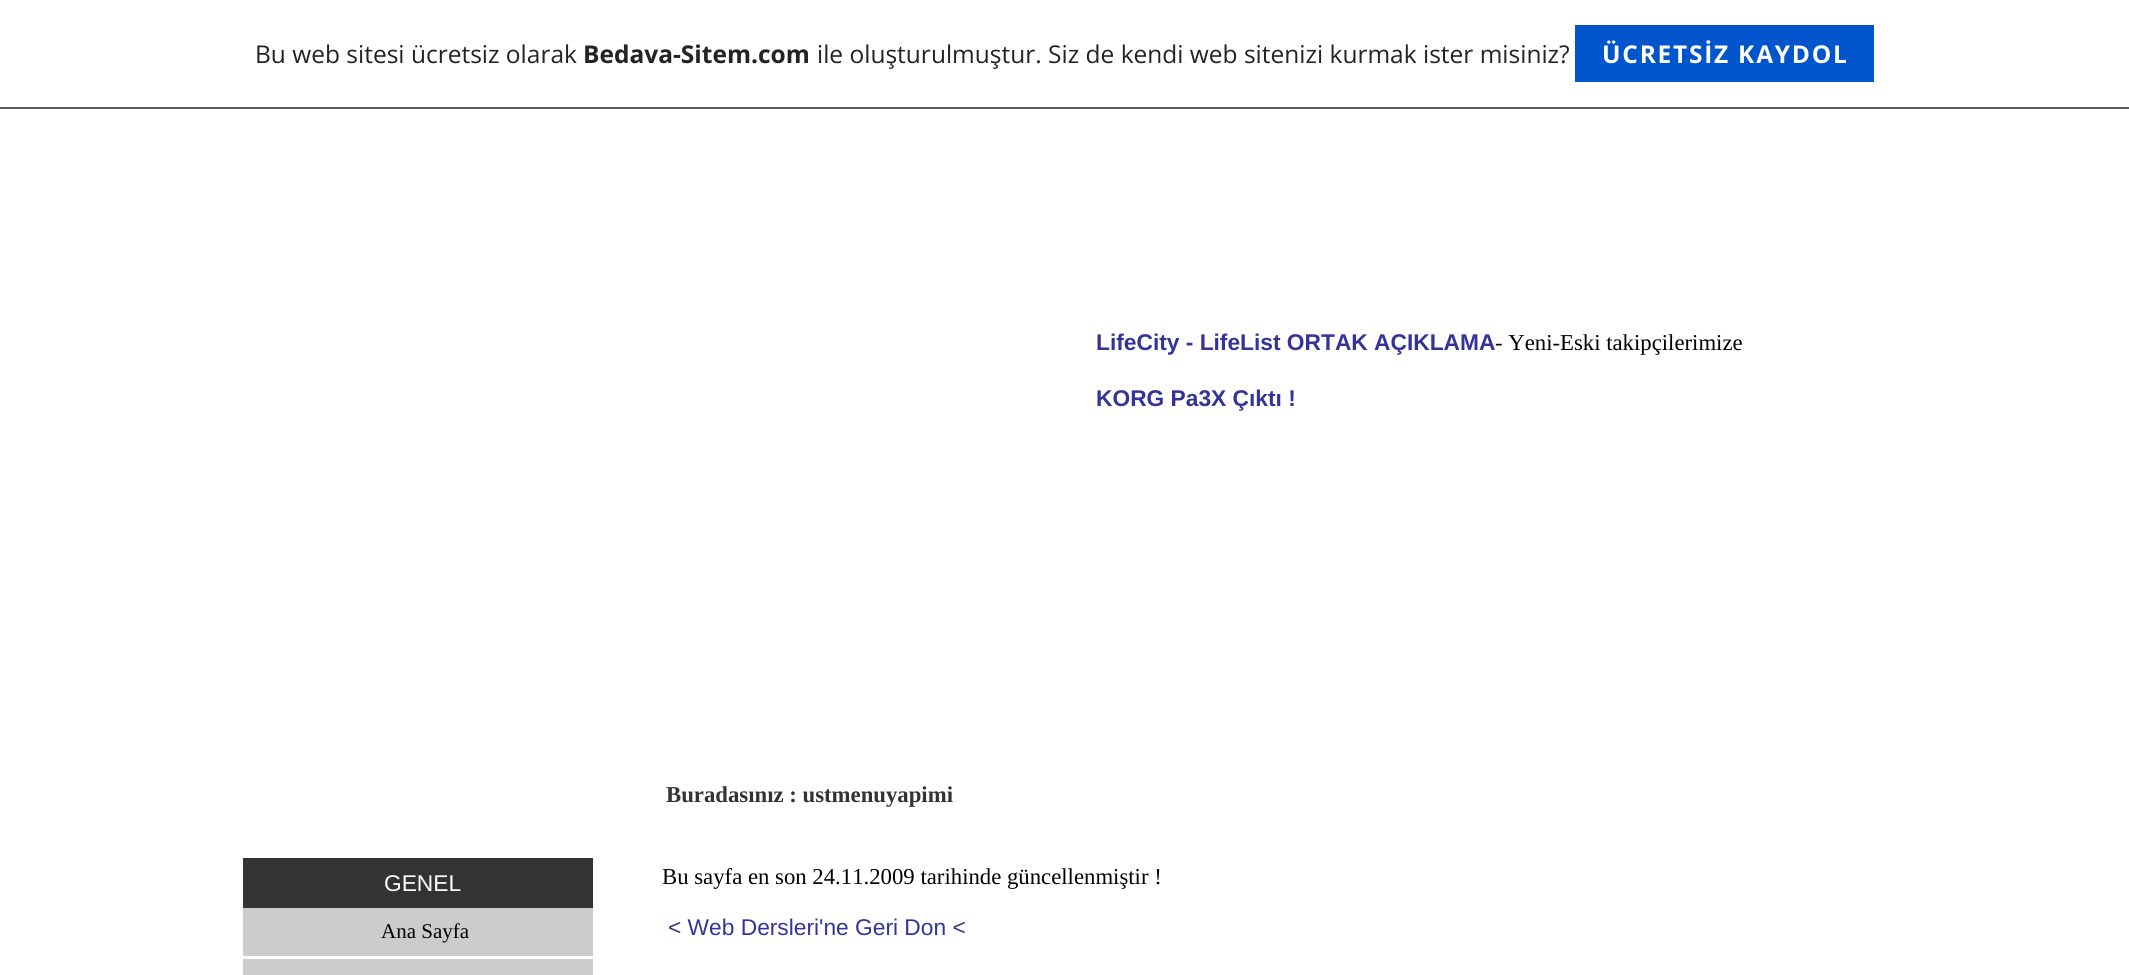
import math
import cairo



def draw_spaced(context, x, y, s, letter, word):
    context.move_to(x, y)
    for ch in s:
        context.show_text(ch)
        context.rel_move_to(letter + word * (ch == ' '), 0)


def draw(context):
    context.set_source_rgb(1, 1, 1)
    context.paint()
    context.set_source_rgb(90 / 255, 90 / 255, 90 / 255)
    context.rectangle(0, 107, 2129, 2)
    context.fill()
    context.set_source_rgb(0, 85 / 255, 204 / 255)
    context.rectangle(1575, 25, 299, 57)
    context.fill()
    context.set_source_rgb(51 / 255, 51 / 255, 51 / 255)
    context.rectangle(243, 858, 350, 50)
    context.fill()
    context.set_source_rgb(204 / 255, 204 / 255, 204 / 255)
    context.rectangle(243, 908, 350, 48)
    context.fill()
    context.rectangle(243, 959, 350, 16)
    context.fill()
    context.select_font_face("Open Sans")
    context.set_font_size(24.5)
    context.set_source_rgb(35 / 255, 35 / 255, 35 / 255)
    context.move_to(255, 63)
    context.show_text("Bu web sitesi ücretsiz olarak")
    context.select_font_face("Open Sans", cairo.FontSlant.NORMAL, cairo.FontWeight.BOLD)
    context.move_to(583, 63)
    context.show_text("Bedava-Sitem.com")
    context.select_font_face("Open Sans")
    context.move_to(817, 63)
    context.show_text("ile oluşturulmuştur. Siz de kendi web sitenizi kurmak ister misiniz?")
    context.select_font_face("Open Sans", cairo.FontSlant.NORMAL, cairo.FontWeight.BOLD)
    context.set_source_rgb(1, 1, 1)
    draw_spaced(context, 1602, 63, "ÜCRETSİZ KAYDOL", 1.75, 0)
    context.select_font_face("Liberation Sans", cairo.FontSlant.NORMAL, cairo.FontWeight.BOLD)
    context.set_font_size(22.75)
    context.set_source_rgb(51 / 255, 51 / 255, 153 / 255)
    context.move_to(1096, 350)
    context.show_text("LifeCity - LifeList ORTAK AÇIKLAMA")
    context.select_font_face("Liberation Serif")
    context.set_source_rgb(0, 0, 0)
    context.move_to(1495, 350)
    context.show_text("- Yeni-Eski takipçilerimize")
    context.select_font_face("Liberation Sans", cairo.FontSlant.NORMAL, cairo.FontWeight.BOLD)
    context.set_source_rgb(51 / 255, 51 / 255, 153 / 255)
    context.move_to(1096, 406)
    context.show_text("KORG Pa3X Çıktı !")
    context.select_font_face("Liberation Serif", cairo.FontSlant.NORMAL, cairo.FontWeight.BOLD)
    context.set_source_rgb(51 / 255, 51 / 255, 51 / 255)
    context.move_to(666, 802)
    context.show_text("Buradasınız : ustmenuyapimi")
    context.select_font_face("Liberation Sans")
    context.set_source_rgb(1, 1, 1)
    context.move_to(384, 891)
    context.show_text("GENEL")
    context.select_font_face("Liberation Serif")
    context.set_font_size(21)
    context.set_source_rgb(0, 0, 0)
    context.move_to(381, 938)
    context.show_text("Ana Sayfa")
    context.set_font_size(22.75)
    context.move_to(662, 884)
    context.show_text("Bu sayfa en son 24.11.2009 tarihinde güncellenmiştir !")
    context.select_font_face("Liberation Sans")
    context.set_source_rgb(51 / 255, 51 / 255, 153 / 255)
    context.move_to(668, 935)
    context.show_text("< Web Dersleri'ne Geri Don <")


surface = cairo.ImageSurface(cairo.Format.RGB24, 2129, 975)
context = cairo.Context(surface)
options = cairo.FontOptions()
options.set_hint_metrics(cairo.HintMetrics.OFF)
options.set_hint_style(cairo.HintStyle.NONE)
context.set_font_options(options)
context.set_miter_limit(4)
draw(context)
surface.write_to_png("out.png")
